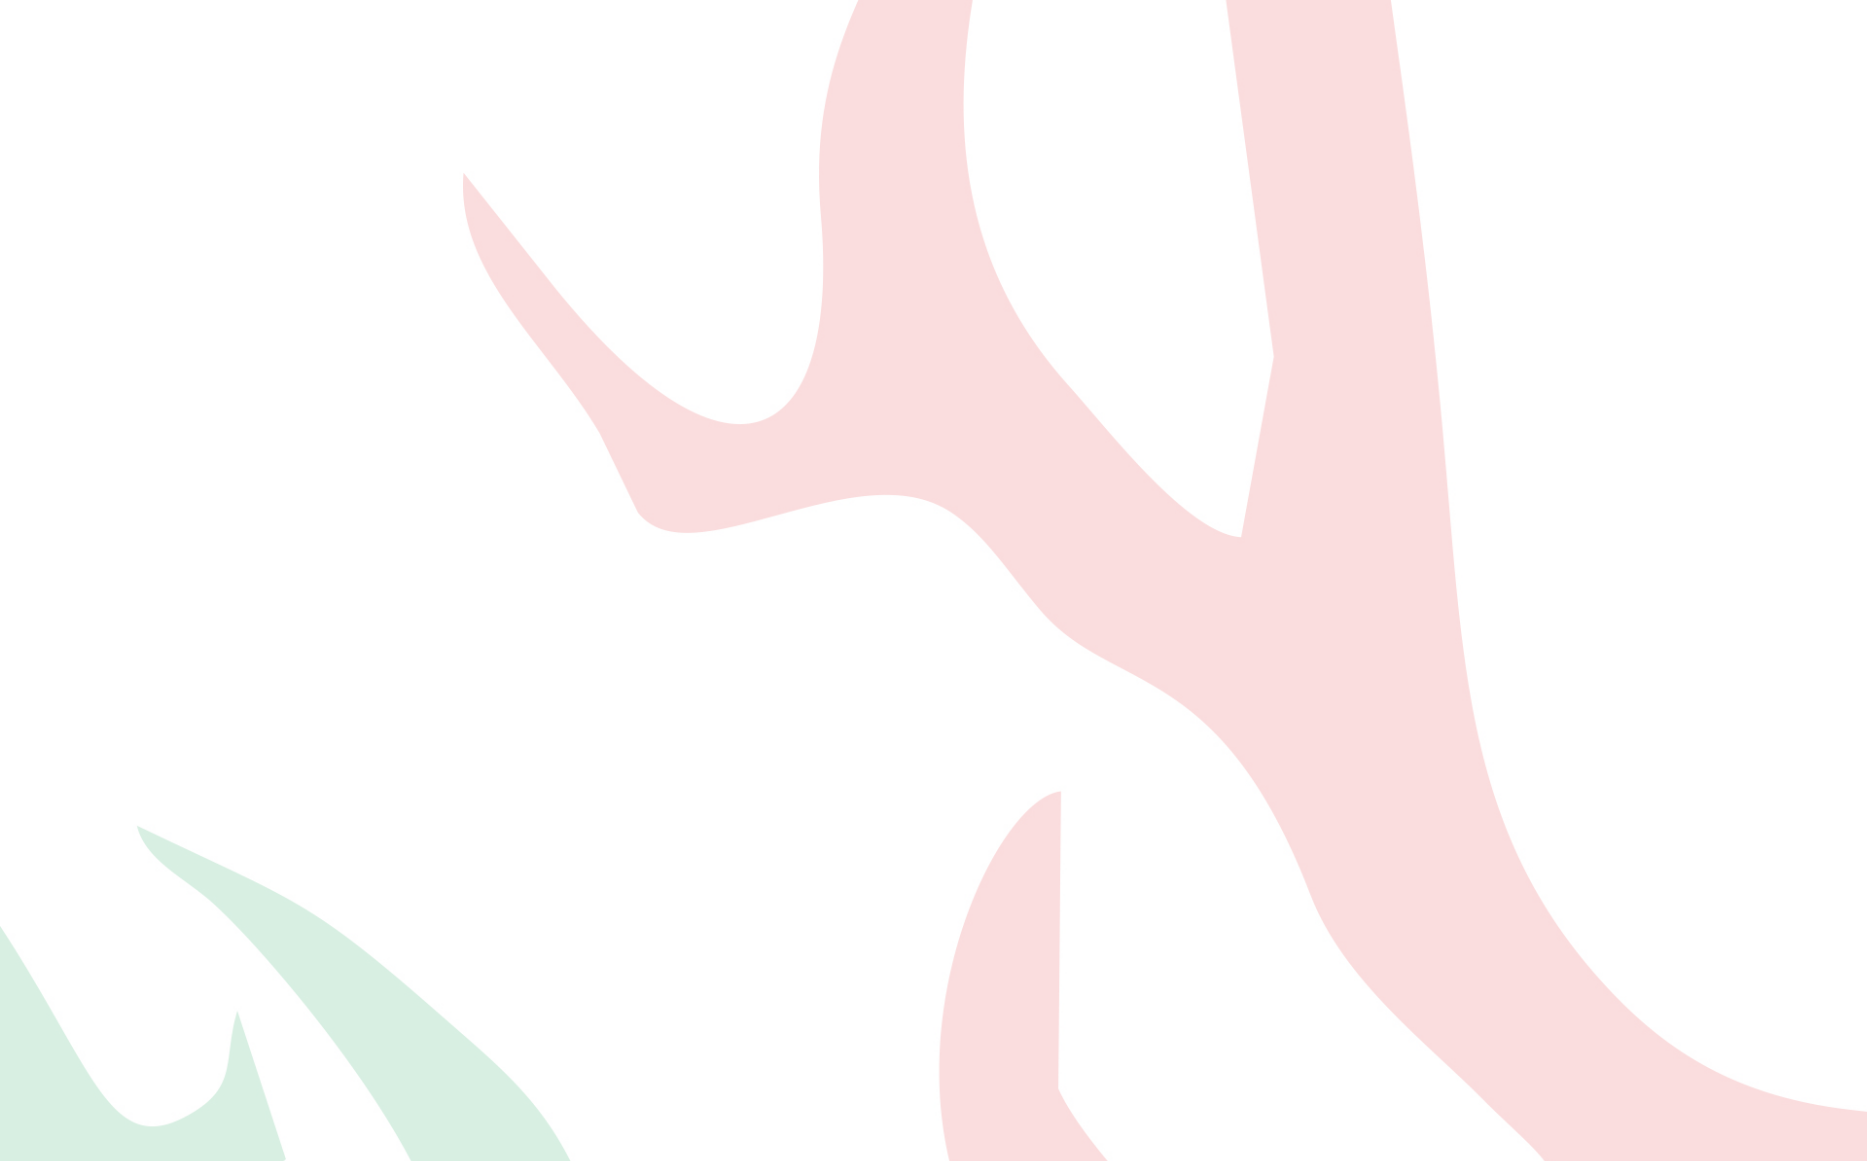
import math
import cairo



def draw_image(context, path, x, y, w, h):
    context.save()
    context.set_source_surface(cairo.ImageSurface.create_from_png(path), x, y)
    context.rectangle(x, y, w, h)
    context.fill()
    context.restore()


def draw(context):
    context.set_source_rgb(1, 1, 1)
    context.paint()
    draw_image(context, "images/1.png", 0, 0, 1867, 1161)


surface = cairo.ImageSurface(cairo.Format.RGB24, 1867, 1161)
context = cairo.Context(surface)
options = cairo.FontOptions()
options.set_hint_metrics(cairo.HintMetrics.OFF)
options.set_hint_style(cairo.HintStyle.NONE)
context.set_font_options(options)
context.set_miter_limit(4)
draw(context)
surface.write_to_png("out.png")
